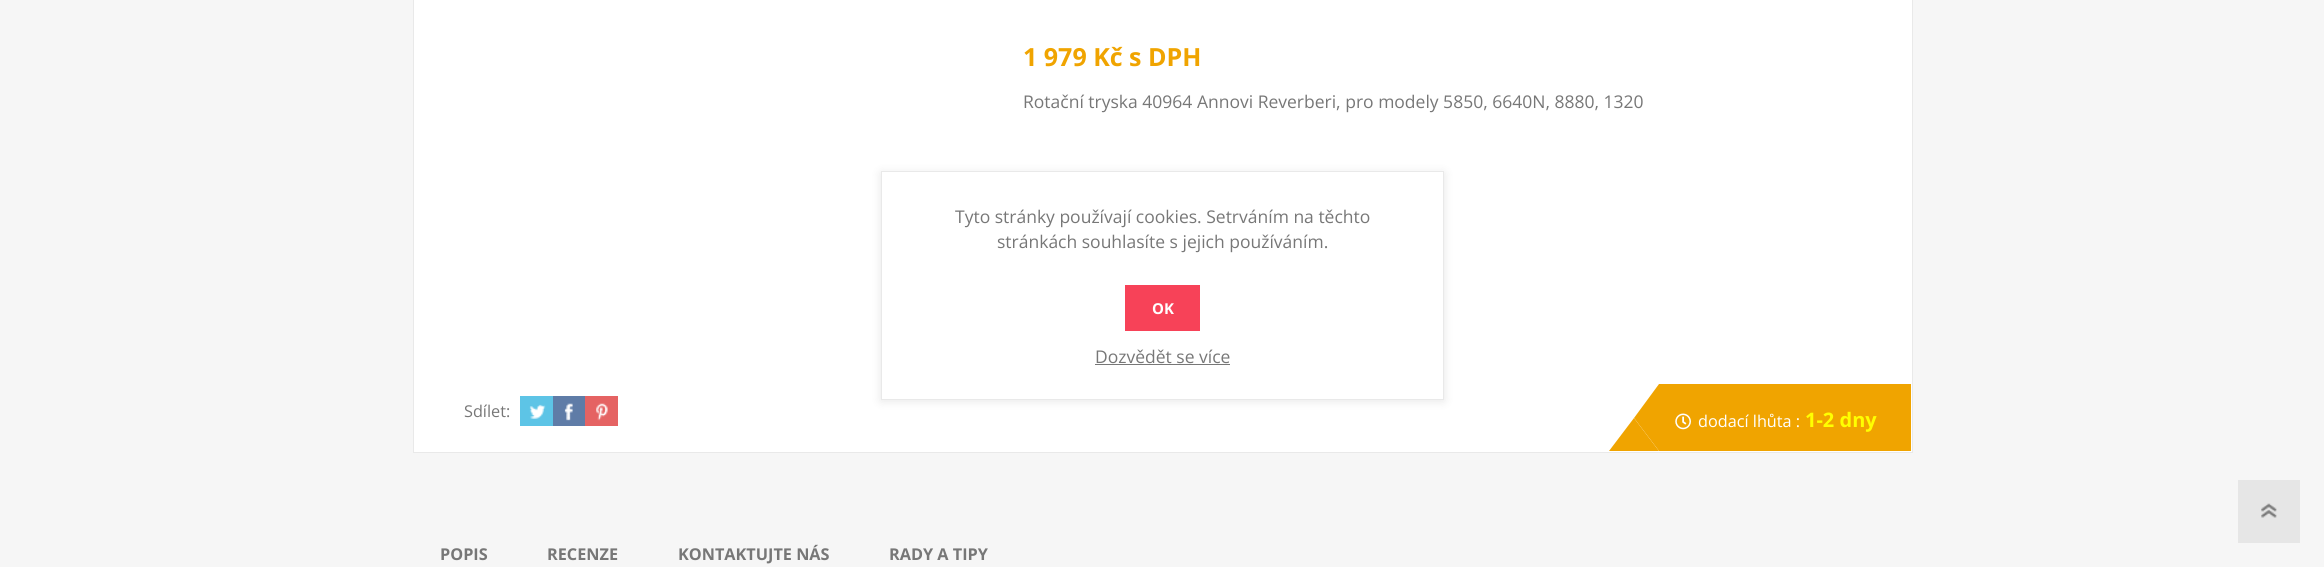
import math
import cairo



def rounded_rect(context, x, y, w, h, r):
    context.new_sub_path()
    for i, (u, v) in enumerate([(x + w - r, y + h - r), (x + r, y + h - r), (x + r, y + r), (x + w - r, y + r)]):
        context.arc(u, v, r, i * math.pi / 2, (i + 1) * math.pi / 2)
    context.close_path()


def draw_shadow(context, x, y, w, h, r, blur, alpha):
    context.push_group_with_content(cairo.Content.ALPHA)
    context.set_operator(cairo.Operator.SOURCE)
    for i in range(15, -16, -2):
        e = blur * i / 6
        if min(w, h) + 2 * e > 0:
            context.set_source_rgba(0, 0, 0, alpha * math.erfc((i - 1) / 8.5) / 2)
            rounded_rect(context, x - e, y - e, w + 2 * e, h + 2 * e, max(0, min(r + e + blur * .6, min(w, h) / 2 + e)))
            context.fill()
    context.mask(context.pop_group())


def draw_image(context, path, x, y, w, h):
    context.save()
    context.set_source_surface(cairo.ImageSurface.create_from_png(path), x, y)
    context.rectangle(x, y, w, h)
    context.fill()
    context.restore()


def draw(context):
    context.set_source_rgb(246 / 255, 246 / 255, 246 / 255)
    context.paint()
    context.set_source_rgb(1, 1, 1)
    context.rectangle(413.5, -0.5, 1499, 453)
    context.fill_preserve()
    context.set_source_rgb(233 / 255, 233 / 255, 233 / 255)
    context.set_line_width(1)
    context.stroke()
    context.set_source_rgb(93 / 255, 196 / 255, 230 / 255)
    context.rectangle(520, 396, 33, 30)
    context.fill()
    draw_image(context, "images/1.png", 529, 404, 17, 15)
    context.set_source_rgb(95 / 255, 124 / 255, 167 / 255)
    context.rectangle(553, 396, 32, 30)
    context.fill()
    draw_image(context, "images/2.png", 564, 403, 9, 18)
    context.set_source_rgb(229 / 255, 99 / 255, 99 / 255)
    context.rectangle(585, 396, 33, 30)
    context.fill()
    draw_image(context, "images/3.png", 596, 403, 12, 18)
    context.set_source_rgb(240 / 255, 164 / 255, 0)
    context.rectangle(1659, 384, 252, 67)
    context.fill()
    context.new_path()
    context.move_to(1659, 384)
    context.line_to(1659, 451)
    context.line_to(1634, 418)
    context.close_path()
    context.fill()
    context.new_path()
    context.move_to(1659, 451)
    context.line_to(1609, 451)
    context.line_to(1634, 418)
    context.close_path()
    context.fill()
    draw_image(context, "images/4.png", 1675, 413, 16, 17)
    context.set_source_rgb(0, 0, 0)
    draw_shadow(context, 881, 173, 563, 228, 0, 5, 0.1)
    context.set_source_rgb(1, 1, 1)
    context.rectangle(881.5, 171.5, 562, 228)
    context.fill_preserve()
    context.set_source_rgb(233 / 255, 233 / 255, 233 / 255)
    context.stroke()
    context.set_source_rgb(247 / 255, 66 / 255, 88 / 255)
    context.rectangle(1125, 285, 75, 46)
    context.fill()
    context.set_source_rgb(119 / 255, 119 / 255, 119 / 255)
    context.rectangle(1095, 364, 135, 1)
    context.fill()
    context.set_source_rgb(230 / 255, 230 / 255, 230 / 255)
    context.rectangle(2238, 480, 62, 63)
    context.fill()
    draw_image(context, "images/5.png", 2261, 503, 16, 15)
    context.select_font_face("Open Sans", cairo.FontSlant.NORMAL, cairo.FontWeight.BOLD)
    context.set_font_size(25)
    context.set_source_rgb(240 / 255, 164 / 255, 0)
    context.move_to(1023, 66)
    context.show_text("1 979 Kč s DPH")
    context.select_font_face("Open Sans")
    context.set_font_size(17.5)
    context.set_source_rgb(119 / 255, 119 / 255, 119 / 255)
    context.move_to(1023, 108)
    context.show_text("Rotační tryska 40964 Annovi Reverberi, pro modely 5850, 6640N, 8880, 1320")
    context.set_font_size(16.25)
    context.move_to(464, 417)
    context.show_text("Sdílet:")
    context.set_source_rgb(1, 1, 1)
    context.move_to(1698, 427)
    context.show_text("dodací lhůta :")
    context.select_font_face("Open Sans", cairo.FontSlant.NORMAL, cairo.FontWeight.BOLD)
    context.set_font_size(20)
    context.set_source_rgb(1, 1, 0)
    context.move_to(1805, 427)
    context.show_text("1-2 dny")
    context.set_font_size(16.25)
    context.set_source_rgb(119 / 255, 119 / 255, 119 / 255)
    context.move_to(440, 560)
    context.show_text("POPIS")
    context.move_to(547, 560)
    context.show_text("RECENZE")
    context.move_to(678, 560)
    context.show_text("KONTAKTUJTE NÁS")
    context.move_to(889, 560)
    context.show_text("RADY A TIPY")
    context.select_font_face("Open Sans")
    context.set_font_size(17.5)
    context.move_to(955, 223)
    context.show_text("Tyto stránky používají cookies. Setrváním na těchto")
    context.move_to(997, 248)
    context.show_text("stránkách souhlasíte s jejich používáním.")
    context.select_font_face("Open Sans", cairo.FontSlant.NORMAL, cairo.FontWeight.BOLD)
    context.set_font_size(15)
    context.set_source_rgb(1, 1, 1)
    context.move_to(1152, 314)
    context.show_text("OK")
    context.select_font_face("Open Sans")
    context.set_font_size(17.5)
    context.set_source_rgb(119 / 255, 119 / 255, 119 / 255)
    context.move_to(1095, 363)
    context.show_text("Dozvědět se více")


surface = cairo.ImageSurface(cairo.Format.RGB24, 2324, 567)
context = cairo.Context(surface)
options = cairo.FontOptions()
options.set_hint_metrics(cairo.HintMetrics.OFF)
options.set_hint_style(cairo.HintStyle.NONE)
context.set_font_options(options)
context.set_miter_limit(4)
draw(context)
surface.write_to_png("out.png")
